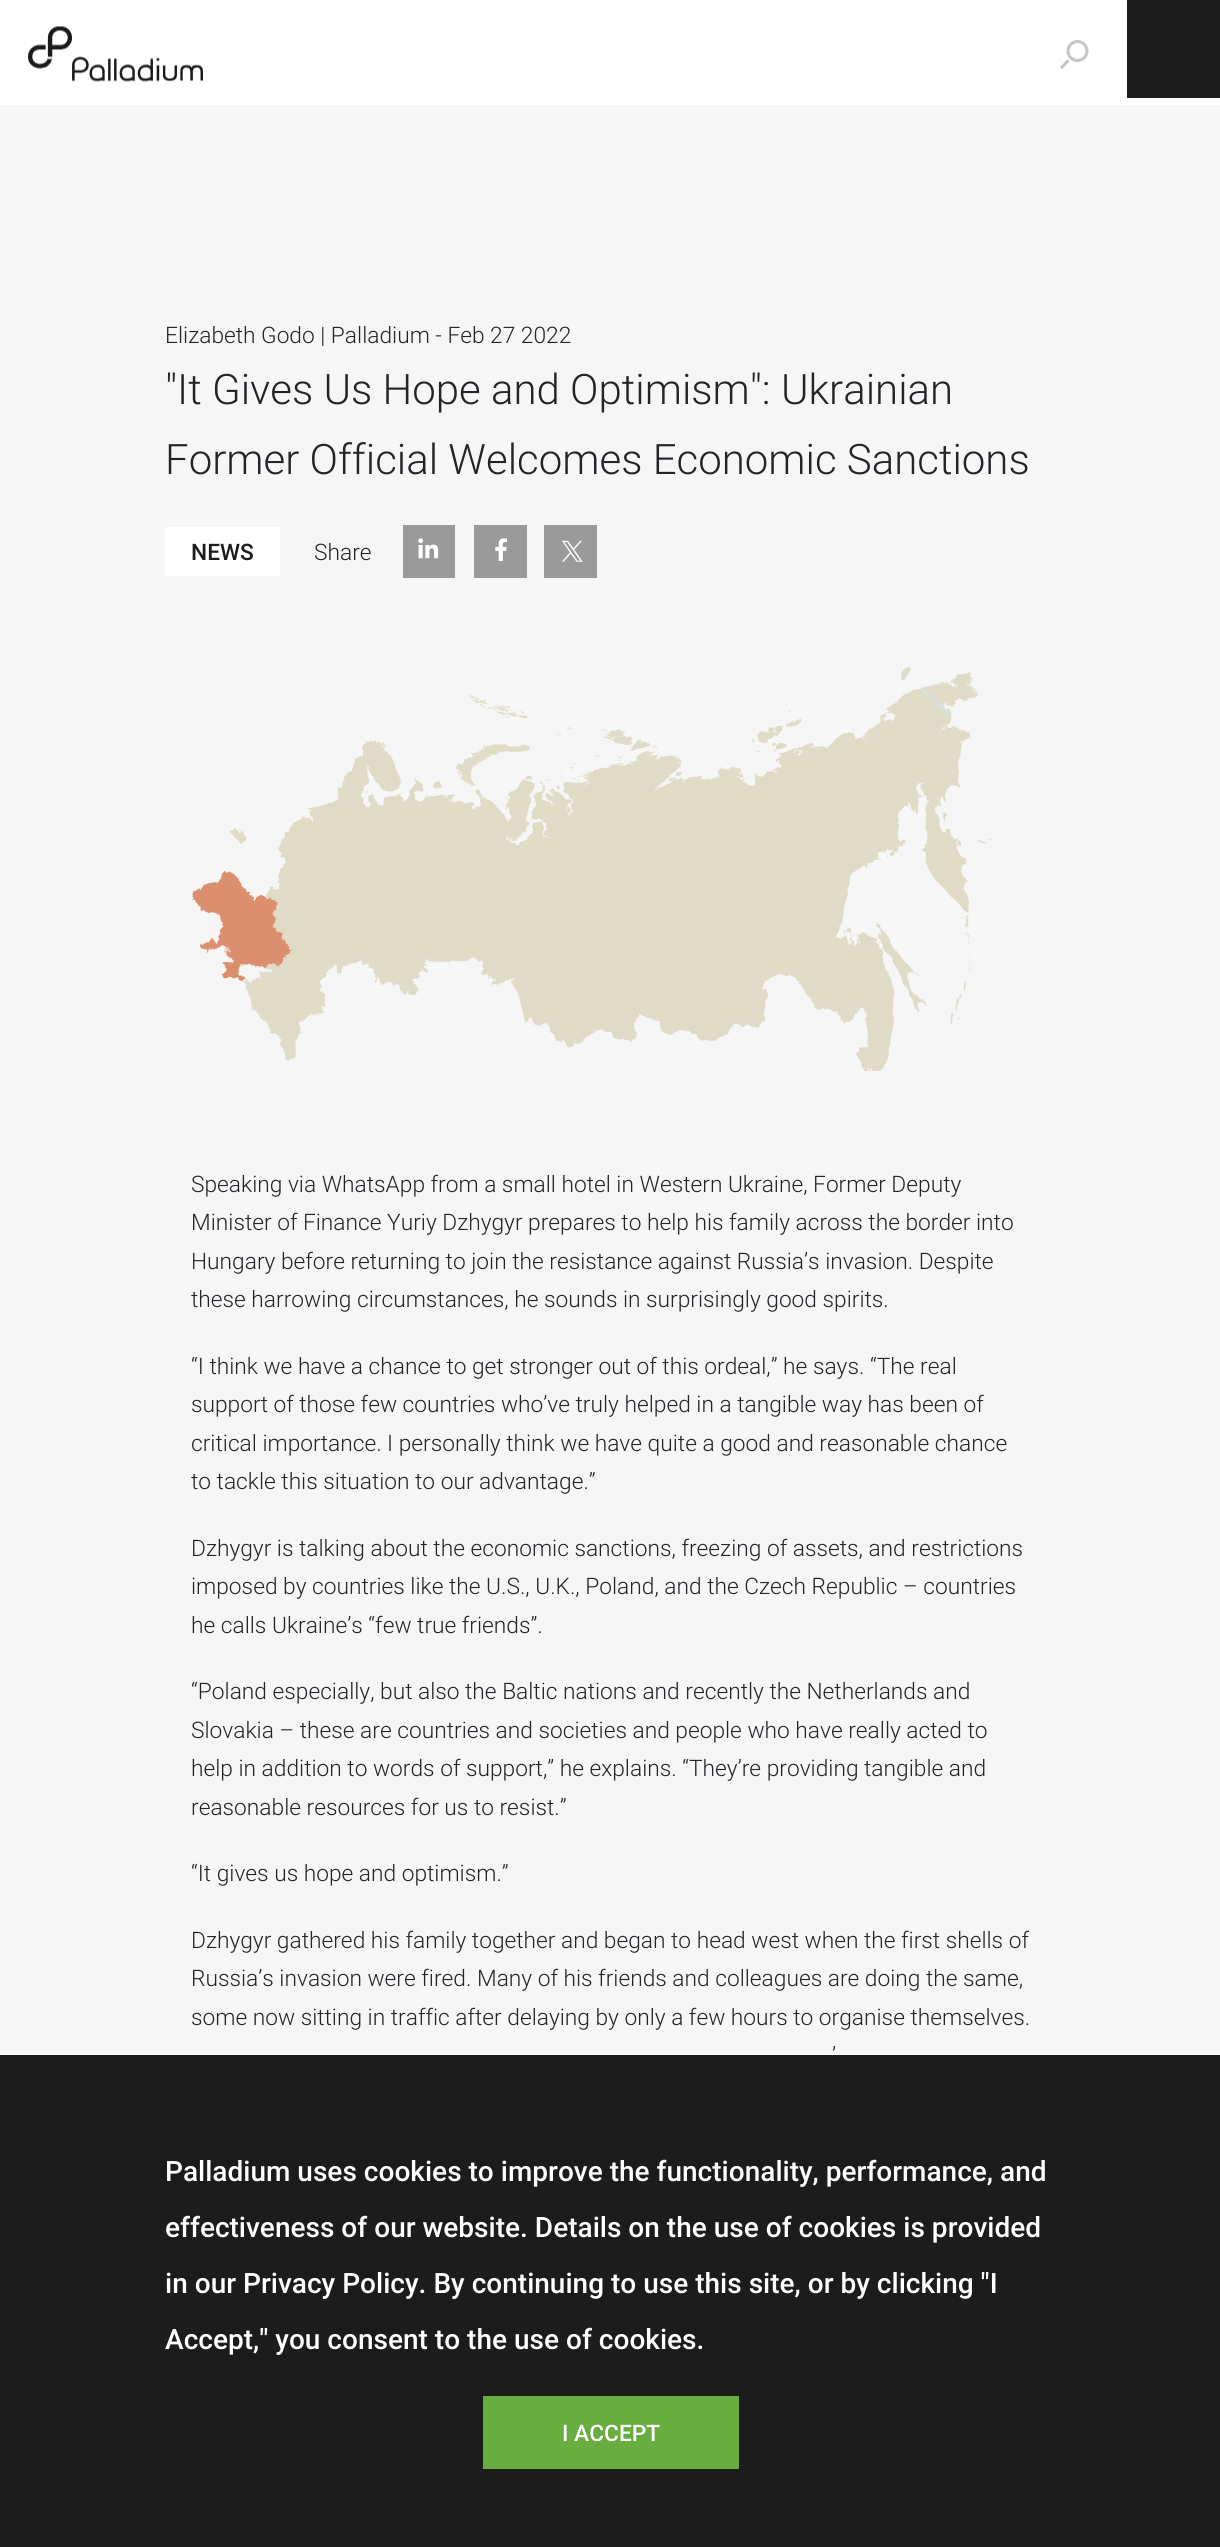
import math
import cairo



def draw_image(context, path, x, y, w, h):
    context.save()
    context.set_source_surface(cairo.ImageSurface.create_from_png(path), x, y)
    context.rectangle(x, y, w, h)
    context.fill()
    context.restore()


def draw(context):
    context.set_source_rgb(246 / 255, 246 / 255, 246 / 255)
    context.paint()
    context.set_source_rgb(1, 1, 1)
    context.rectangle(0, 0, 1220, 105)
    context.fill()
    draw_image(context, "images/1.png", 28, 26, 175, 56)
    context.arc(1077.5, 51, 9.5, 0, 2 * math.pi)
    context.set_source_rgb(198 / 255, 198 / 255, 198 / 255)
    context.set_line_width(3.1)
    context.stroke()
    context.new_path()
    context.move_to(1067.5, 61.5)
    context.line_to(1062, 67)
    context.set_line_cap(cairo.LineCap.SQUARE)
    context.stroke()
    context.set_source_rgb(28 / 255, 28 / 255, 28 / 255)
    context.rectangle(1127, 0, 93, 98)
    context.fill()
    context.set_source_rgb(1, 1, 1)
    context.rectangle(165, 527, 115, 49)
    context.fill()
    context.set_source_rgb(154 / 255, 154 / 255, 154 / 255)
    context.rectangle(403, 525, 52, 53)
    context.fill()
    draw_image(context, "images/2.png", 418, 538, 21, 21)
    context.rectangle(474, 525, 53, 53)
    context.fill()
    draw_image(context, "images/3.png", 495, 538, 12, 24)
    context.rectangle(544, 525, 53, 53)
    context.fill()
    draw_image(context, "images/4.png", 561, 540, 22, 22)
    draw_image(context, "images/5.png", 192, 660, 802, 411)
    context.set_source_rgb(28 / 255, 28 / 255, 28 / 255)
    context.rectangle(0, 2055, 1220, 492)
    context.fill()
    context.set_source_rgb(103 / 255, 173 / 255, 63 / 255)
    context.rectangle(483, 2396, 256, 73)
    context.fill()
    context.select_font_face("Roboto Light")
    context.set_font_size(22.75)
    context.set_source_rgb(33 / 255, 37 / 255, 41 / 255)
    context.move_to(165, 343)
    context.show_text("Elizabeth Godo | Palladium - Feb 27 2022")
    context.set_font_size(42)
    context.move_to(165, 404)
    context.show_text("\"It Gives Us Hope and Optimism\": Ukrainian")
    context.move_to(165, 474)
    context.show_text("Former Official Welcomes Economic Sanctions")
    context.select_font_face("Roboto Medium")
    context.set_font_size(22.75)
    context.set_source_rgb(28 / 255, 28 / 255, 28 / 255)
    context.move_to(191, 560)
    context.show_text("NEWS")
    context.select_font_face("Roboto Light")
    context.set_source_rgb(33 / 255, 37 / 255, 41 / 255)
    context.move_to(314, 560)
    context.show_text("Share")
    context.move_to(191, 1192)
    context.show_text("Speaking via WhatsApp from a small hotel in Western Ukraine, Former Deputy")
    context.move_to(191, 1230)
    context.show_text("Minister of Finance Yuriy Dzhygyr prepares to help his family across the border into")
    context.move_to(191, 1269)
    context.show_text("Hungary before returning to join the resistance against Russia’s invasion. Despite")
    context.move_to(191, 1307)
    context.show_text("these harrowing circumstances, he sounds in surprisingly good spirits.")
    context.move_to(191, 1374)
    context.show_text("“I think we have a chance to get stronger out of this ordeal,” he says. “The real")
    context.move_to(191, 1412)
    context.show_text("support of those few countries who’ve truly helped in a tangible way has been of")
    context.move_to(191, 1451)
    context.show_text("critical importance. I personally think we have quite a good and reasonable chance")
    context.move_to(191, 1489)
    context.show_text("to tackle this situation to our advantage.”")
    context.move_to(191, 1556)
    context.show_text("Dzhygyr is talking about the economic sanctions, freezing of assets, and restrictions")
    context.move_to(191, 1594)
    context.show_text("imposed by countries like the U.S., U.K., Poland, and the Czech Republic – countries")
    context.move_to(191, 1633)
    context.show_text("he calls Ukraine’s “few true friends”.")
    context.move_to(191, 1699)
    context.show_text("“Poland especially, but also the Baltic nations and recently the Netherlands and")
    context.move_to(191, 1738)
    context.show_text("Slovakia – these are countries and societies and people who have really acted to")
    context.move_to(191, 1776)
    context.show_text("help in addition to words of support,” he explains. “They’re providing tangible and")
    context.move_to(191, 1815)
    context.show_text("reasonable resources for us to resist.”")
    context.move_to(191, 1881)
    context.show_text("“It gives us hope and optimism.”")
    context.move_to(191, 1948)
    context.show_text("Dzhygyr gathered his family together and began to head west when the first shells of")
    context.move_to(191, 1986)
    context.show_text("Russia’s invasion were fired. Many of his friends and colleagues are doing the same,")
    context.move_to(191, 2025)
    context.show_text("some now sitting in traffic after delaying by only a few hours to organise themselves.")
    context.move_to(832, 2063)
    context.show_text("’")
    context.select_font_face("Roboto Medium")
    context.set_font_size(28)
    context.set_source_rgb(1, 1, 1)
    context.move_to(165, 2181)
    context.show_text("Palladium uses cookies to improve the functionality, performance, and")
    context.move_to(165, 2237)
    context.show_text("effectiveness of our website. Details on the use of cookies is provided")
    context.move_to(165, 2293)
    context.show_text("in our Privacy Policy. By continuing to use this site, or by clicking \"I")
    context.move_to(165, 2349)
    context.show_text("Accept,\" you consent to the use of cookies.")
    context.set_font_size(22.75)
    context.move_to(562, 2441)
    context.show_text("I ACCEPT")


surface = cairo.ImageSurface(cairo.Format.RGB24, 1220, 2547)
context = cairo.Context(surface)
options = cairo.FontOptions()
options.set_hint_metrics(cairo.HintMetrics.OFF)
options.set_hint_style(cairo.HintStyle.NONE)
context.set_font_options(options)
context.set_miter_limit(4)
draw(context)
surface.write_to_png("out.png")
